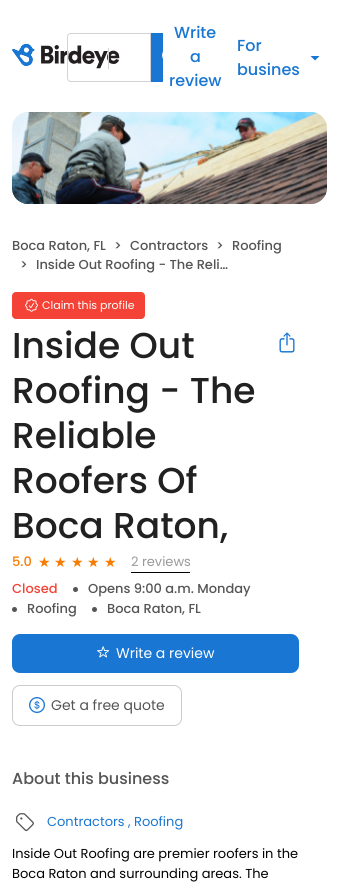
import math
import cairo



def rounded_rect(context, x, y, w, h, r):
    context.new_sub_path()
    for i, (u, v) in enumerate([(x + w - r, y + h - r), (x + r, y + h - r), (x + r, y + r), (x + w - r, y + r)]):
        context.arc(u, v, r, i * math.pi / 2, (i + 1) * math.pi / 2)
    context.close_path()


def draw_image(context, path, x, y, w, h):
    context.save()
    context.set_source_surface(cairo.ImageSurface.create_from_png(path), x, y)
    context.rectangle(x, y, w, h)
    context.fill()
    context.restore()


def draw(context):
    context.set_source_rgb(1, 1, 1)
    context.paint()
    draw_image(context, "images/2.png", 12, 43, 108, 26)
    context.new_path()
    context.move_to(71, 33.5)
    context.line_to(150.5, 33.5)
    context.line_to(150.5, 81.5)
    context.line_to(71, 81.5)
    context.curve_to(69, 81.5, 67.5, 80, 67.5, 78)
    context.line_to(67.5, 37)
    context.curve_to(67.5, 35, 69, 33.5, 71, 33.5)
    context.close_path()
    context.set_source_rgb(210 / 255, 210 / 255, 215 / 255)
    context.set_line_width(1)
    context.stroke()
    context.rectangle(108, 48, 1, 21)
    context.fill()
    context.set_source_rgb(25 / 255, 118 / 255, 210 / 255)
    context.rectangle(151, 33, 12, 49)
    context.fill()
    draw_image(context, "images/1.png", 162, 51, 1, 8)
    context.new_path()
    context.move_to(310.5, 56)
    context.line_to(315, 60.5)
    context.line_to(319.5, 56)
    context.close_path()
    context.fill()
    draw_image(context, "images/3.png", 12, 112, 315, 92)
    draw_image(context, "images/4.png", 12, 112, 315, 92)
    context.set_source_rgb(244 / 255, 67 / 255, 54 / 255)
    rounded_rect(context, 12.5, 292.5, 132, 26, 3.5)
    context.fill_preserve()
    context.stroke()
    draw_image(context, "images/5.png", 25, 298, 13, 14)
    draw_image(context, "images/6.png", 279, 332, 16, 21)
    context.set_source_rgb(0, 0, 0)
    context.rectangle(131, 572, 59, 1)
    context.fill()
    context.set_source_rgb(85 / 255, 85 / 255, 85 / 255)
    context.arc(75.5, 589.5, 2.5, 0, 2 * math.pi)
    context.fill()
    context.arc(14.5, 609.5, 2.5, 0, 2 * math.pi)
    context.fill()
    context.arc(94.5, 609.5, 2.5, 0, 2 * math.pi)
    context.fill()
    context.set_source_rgb(25 / 255, 118 / 255, 210 / 255)
    rounded_rect(context, 12, 634, 287, 39, 8)
    context.fill()
    draw_image(context, "images/7.png", 97, 646, 13, 12)
    rounded_rect(context, 12.5, 685.5, 169, 40, 7.5)
    context.set_source_rgb(204 / 255, 204 / 255, 204 / 255)
    context.stroke()
    draw_image(context, "images/8.png", 29, 697, 16, 16)
    draw_image(context, "images/9.png", 16, 813, 18, 19)
    context.select_font_face("Poppins Medium")
    context.set_font_size(16)
    context.set_source_rgb(25 / 255, 118 / 255, 210 / 255)
    context.move_to(174, 38)
    context.show_text("Write")
    context.move_to(190, 62)
    context.show_text("a")
    context.move_to(169, 86)
    context.show_text("review")
    context.move_to(237, 51)
    context.show_text("For")
    context.move_to(237, 75)
    context.show_text("busines")
    context.set_font_size(13)
    context.set_source_rgb(85 / 255, 85 / 255, 85 / 255)
    context.move_to(12, 250)
    context.show_text("Boca Raton, FL")
    context.move_to(114, 250)
    context.show_text(">")
    context.move_to(130, 250)
    context.show_text("Contractors")
    context.move_to(216, 250)
    context.show_text(">")
    context.move_to(232, 250)
    context.show_text("Roofing")
    context.move_to(20, 269)
    context.show_text(">")
    context.move_to(36, 269)
    context.show_text("Inside Out Roofing - The Reli…")
    context.select_font_face("Poppins")
    context.set_font_size(11)
    context.set_source_rgb(1, 1, 1)
    context.move_to(42, 309)
    context.show_text("Claim this profile")
    context.select_font_face("Poppins Medium")
    context.set_font_size(36)
    context.set_source_rgb(33 / 255, 33 / 255, 33 / 255)
    context.move_to(12, 358)
    context.show_text("Inside Out")
    context.move_to(12, 403)
    context.show_text("Roofing - The")
    context.move_to(12, 448)
    context.show_text("Reliable")
    context.move_to(12, 493)
    context.show_text("Roofers Of")
    context.move_to(12, 538)
    context.show_text("Boca Raton,")
    context.set_font_size(13)
    context.set_source_rgb(245 / 255, 124 / 255, 0)
    context.move_to(12, 566)
    context.show_text("5.0")
    context.select_font_face("DejaVu Sans")
    context.set_font_size(14)
    context.move_to(38, 567)
    context.show_text("★")
    context.move_to(54, 567)
    context.show_text("★")
    context.move_to(71, 567)
    context.show_text("★")
    context.move_to(87, 567)
    context.show_text("★")
    context.move_to(104, 567)
    context.show_text("★")
    context.select_font_face("Poppins")
    context.set_font_size(13)
    context.set_source_rgb(153 / 255, 153 / 255, 153 / 255)
    context.move_to(131, 566)
    context.show_text("2 reviews")
    context.select_font_face("Poppins Medium")
    context.set_source_rgb(244 / 255, 67 / 255, 54 / 255)
    context.move_to(12, 593)
    context.show_text("Closed")
    context.set_source_rgb(85 / 255, 85 / 255, 85 / 255)
    context.move_to(88, 593)
    context.show_text("Opens 9:00 a.m. Monday")
    context.move_to(27, 613)
    context.show_text("Roofing")
    context.move_to(107, 613)
    context.show_text("Boca Raton, FL")
    context.select_font_face("Poppins")
    context.set_font_size(14)
    context.set_source_rgb(1, 1, 1)
    context.move_to(116, 658)
    context.show_text("Write a review")
    context.set_source_rgb(85 / 255, 85 / 255, 85 / 255)
    context.move_to(51, 710)
    context.show_text("Get a free quote")
    context.select_font_face("Poppins Medium")
    context.set_font_size(16)
    context.move_to(12, 784)
    context.show_text("About this business")
    context.select_font_face("Poppins")
    context.set_font_size(13)
    context.set_source_rgb(25 / 255, 118 / 255, 210 / 255)
    context.move_to(47, 826)
    context.show_text("Contractors")
    context.move_to(128, 826)
    context.show_text(", Roofing")
    context.set_source_rgb(0, 0, 0)
    context.move_to(12, 858)
    context.show_text("Inside Out Roofing are premier roofers in the")
    context.move_to(12, 878)
    context.show_text("Boca Raton and surrounding areas. The")


surface = cairo.ImageSurface(cairo.Format.RGB24, 339, 883)
context = cairo.Context(surface)
options = cairo.FontOptions()
options.set_hint_metrics(cairo.HintMetrics.OFF)
options.set_hint_style(cairo.HintStyle.NONE)
context.set_font_options(options)
context.set_miter_limit(4)
draw(context)
surface.write_to_png("out.png")
